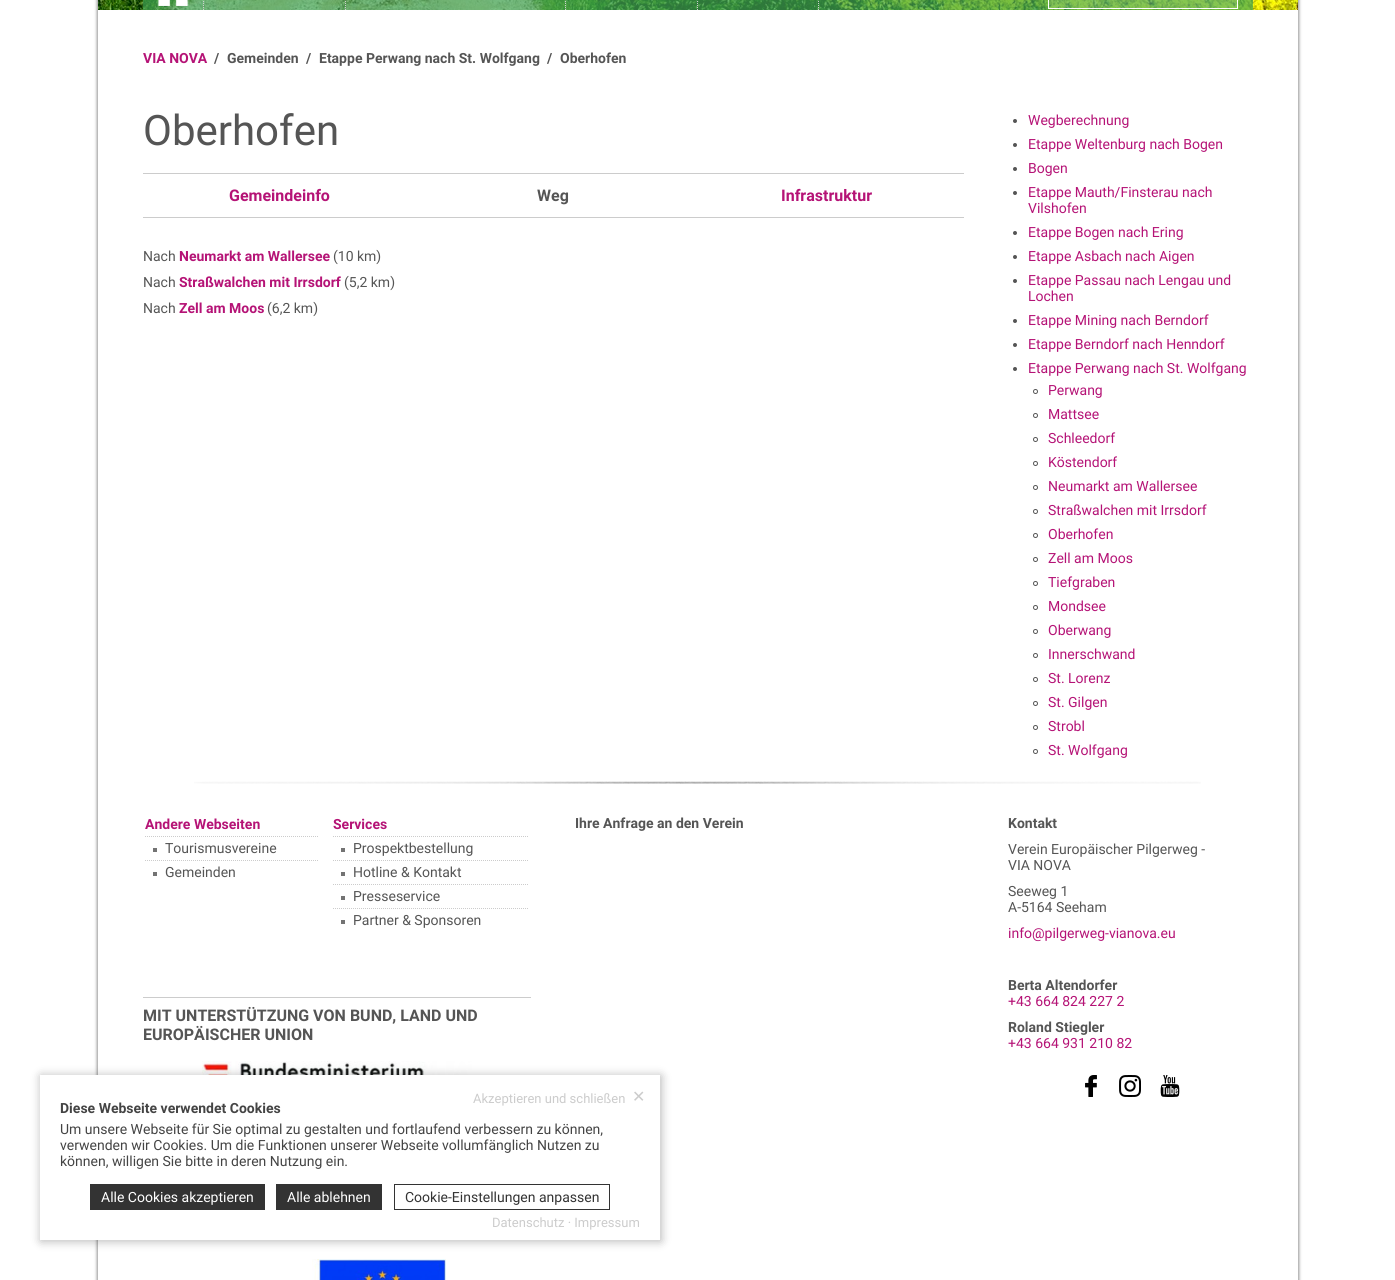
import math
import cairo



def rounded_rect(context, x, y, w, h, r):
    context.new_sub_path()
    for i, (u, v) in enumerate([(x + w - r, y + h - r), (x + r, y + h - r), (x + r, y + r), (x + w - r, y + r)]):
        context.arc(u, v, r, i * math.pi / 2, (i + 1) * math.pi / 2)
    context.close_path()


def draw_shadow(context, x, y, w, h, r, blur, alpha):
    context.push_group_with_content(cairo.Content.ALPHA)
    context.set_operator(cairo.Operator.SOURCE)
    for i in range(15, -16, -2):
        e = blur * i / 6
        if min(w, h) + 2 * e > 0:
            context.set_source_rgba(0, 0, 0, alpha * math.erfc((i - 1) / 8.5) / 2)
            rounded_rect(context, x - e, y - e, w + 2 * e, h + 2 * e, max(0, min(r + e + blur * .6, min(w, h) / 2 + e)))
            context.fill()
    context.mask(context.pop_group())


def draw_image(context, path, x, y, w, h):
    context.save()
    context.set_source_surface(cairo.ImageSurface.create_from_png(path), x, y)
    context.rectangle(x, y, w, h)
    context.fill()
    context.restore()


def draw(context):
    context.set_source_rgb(1, 1, 1)
    context.paint()
    context.save()
    context.set_fill_rule(cairo.FillRule.EVEN_ODD)
    context.new_path()
    context.move_to(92, 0)
    context.line_to(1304, 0)
    context.line_to(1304, 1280)
    context.line_to(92, 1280)
    context.close_path()
    context.move_to(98, -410)
    context.line_to(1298, -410)
    context.line_to(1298, 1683)
    context.line_to(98, 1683)
    context.close_path()
    context.clip()
    context.set_source_rgb(170 / 255, 170 / 255, 170 / 255)
    draw_shadow(context, 98, -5, 1200, 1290, 0, 1.5, 1)
    context.restore()
    context.save()
    context.set_fill_rule(cairo.FillRule.EVEN_ODD)
    context.new_path()
    context.move_to(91, 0)
    context.line_to(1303, 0)
    context.line_to(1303, 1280)
    context.line_to(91, 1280)
    context.close_path()
    context.move_to(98, -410)
    context.line_to(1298, -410)
    context.line_to(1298, 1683)
    context.line_to(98, 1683)
    context.close_path()
    context.clip()
    context.set_source_rgb(170 / 255, 170 / 255, 170 / 255)
    draw_shadow(context, 97, -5, 1200, 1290, 0, 1.5, 1)
    context.restore()
    context.save()
    context.set_fill_rule(cairo.FillRule.EVEN_ODD)
    context.new_path()
    context.move_to(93, 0)
    context.line_to(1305, 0)
    context.line_to(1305, 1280)
    context.line_to(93, 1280)
    context.close_path()
    context.move_to(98, -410)
    context.line_to(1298, -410)
    context.line_to(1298, 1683)
    context.line_to(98, 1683)
    context.close_path()
    context.clip()
    context.set_source_rgb(170 / 255, 170 / 255, 170 / 255)
    draw_shadow(context, 99, -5, 1200, 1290, 0, 1.5, 1)
    context.restore()
    draw_image(context, "images/2.png", 98, 0, 1200, 10)
    draw_image(context, "images/1.png", 157, 0, 32, 6)
    context.new_path()
    context.move_to(203.5, -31)
    context.line_to(203.5, 10)
    context.set_source_rgb(204 / 255, 204 / 255, 204 / 255)
    context.set_line_width(1)
    context.set_dash([1, 1])
    context.stroke()
    context.new_path()
    context.move_to(345.5, -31)
    context.line_to(345.5, 10)
    context.stroke()
    context.new_path()
    context.move_to(565.5, -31)
    context.line_to(565.5, 10)
    context.stroke()
    context.new_path()
    context.move_to(697.5, -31)
    context.line_to(697.5, 10)
    context.stroke()
    context.new_path()
    context.move_to(818.5, -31)
    context.line_to(818.5, 10)
    context.stroke()
    context.set_source_rgba(1, 1, 1, 0.1)
    context.rectangle(1048.5, -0.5, 189, 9)
    context.fill_preserve()
    context.set_source_rgb(1, 1, 1)
    context.set_dash([])
    context.stroke()
    context.set_source_rgb(204 / 255, 204 / 255, 204 / 255)
    context.rectangle(143, 173, 821, 1)
    context.fill()
    context.rectangle(143, 217, 821, 1)
    context.fill()
    context.set_source_rgb(85 / 255, 85 / 255, 85 / 255)
    context.arc(1015, 121, 2, 0, 2 * math.pi)
    context.fill()
    context.arc(1015, 145, 2, 0, 2 * math.pi)
    context.fill()
    context.arc(1015, 169, 2, 0, 2 * math.pi)
    context.fill()
    context.arc(1015, 193, 2, 0, 2 * math.pi)
    context.fill()
    context.arc(1015, 233, 2, 0, 2 * math.pi)
    context.fill()
    context.arc(1015, 257, 2, 0, 2 * math.pi)
    context.fill()
    context.arc(1015, 281, 2, 0, 2 * math.pi)
    context.fill()
    context.arc(1015, 321, 2, 0, 2 * math.pi)
    context.fill()
    context.arc(1015, 345, 2, 0, 2 * math.pi)
    context.fill()
    context.arc(1015, 369, 2, 0, 2 * math.pi)
    context.fill()
    context.arc(1035.5, 391.5, 2, 0, 2 * math.pi)
    context.stroke()
    context.arc(1035.5, 415.5, 2, 0, 2 * math.pi)
    context.stroke()
    context.arc(1035.5, 439.5, 2, 0, 2 * math.pi)
    context.stroke()
    context.arc(1035.5, 463.5, 2, 0, 2 * math.pi)
    context.stroke()
    context.arc(1035.5, 487.5, 2, 0, 2 * math.pi)
    context.stroke()
    context.arc(1035.5, 511.5, 2, 0, 2 * math.pi)
    context.stroke()
    context.arc(1035.5, 535.5, 2, 0, 2 * math.pi)
    context.stroke()
    context.arc(1035.5, 559.5, 2, 0, 2 * math.pi)
    context.stroke()
    context.arc(1035.5, 583.5, 2, 0, 2 * math.pi)
    context.stroke()
    context.arc(1035.5, 607.5, 2, 0, 2 * math.pi)
    context.stroke()
    context.arc(1035.5, 631.5, 2, 0, 2 * math.pi)
    context.stroke()
    context.arc(1035.5, 655.5, 2, 0, 2 * math.pi)
    context.stroke()
    context.arc(1035.5, 679.5, 2, 0, 2 * math.pi)
    context.stroke()
    context.arc(1035.5, 703.5, 2, 0, 2 * math.pi)
    context.stroke()
    context.arc(1035.5, 727.5, 2, 0, 2 * math.pi)
    context.stroke()
    context.arc(1035.5, 751.5, 2, 0, 2 * math.pi)
    context.stroke()
    draw_image(context, "images/3.png", 194, 781, 1007, 3)
    context.set_source_rgb(115 / 255, 115 / 255, 115 / 255)
    context.rectangle(153, 848, 4, 4)
    context.fill()
    context.new_path()
    context.move_to(145, 836.5)
    context.line_to(319, 836.5)
    context.set_source_rgb(204 / 255, 204 / 255, 204 / 255)
    context.set_dash([1, 1])
    context.stroke()
    context.set_source_rgb(115 / 255, 115 / 255, 115 / 255)
    context.rectangle(153, 872, 4, 4)
    context.fill()
    context.new_path()
    context.move_to(145, 860.5)
    context.line_to(319, 860.5)
    context.set_source_rgb(204 / 255, 204 / 255, 204 / 255)
    context.stroke()
    context.set_source_rgb(115 / 255, 115 / 255, 115 / 255)
    context.rectangle(341, 848, 4, 4)
    context.fill()
    context.new_path()
    context.move_to(333, 836.5)
    context.line_to(529, 836.5)
    context.set_source_rgb(204 / 255, 204 / 255, 204 / 255)
    context.stroke()
    context.set_source_rgb(115 / 255, 115 / 255, 115 / 255)
    context.rectangle(341, 872, 4, 4)
    context.fill()
    context.new_path()
    context.move_to(333, 860.5)
    context.line_to(529, 860.5)
    context.set_source_rgb(204 / 255, 204 / 255, 204 / 255)
    context.stroke()
    context.set_source_rgb(115 / 255, 115 / 255, 115 / 255)
    context.rectangle(341, 896, 4, 4)
    context.fill()
    context.new_path()
    context.move_to(333, 884.5)
    context.line_to(529, 884.5)
    context.set_source_rgb(204 / 255, 204 / 255, 204 / 255)
    context.stroke()
    context.set_source_rgb(115 / 255, 115 / 255, 115 / 255)
    context.rectangle(341, 920, 4, 4)
    context.fill()
    context.new_path()
    context.move_to(333, 908.5)
    context.line_to(529, 908.5)
    context.set_source_rgb(204 / 255, 204 / 255, 204 / 255)
    context.stroke()
    context.rectangle(143, 997, 388, 1)
    context.fill()
    draw_image(context, "images/4.png", 202, 1061, 270, 14)
    draw_image(context, "images/5.png", 312, 1259, 134, 21)
    draw_image(context, "images/6.png", 1085, 1075, 12, 22)
    draw_image(context, "images/7.png", 1119, 1075, 22, 22)
    draw_image(context, "images/8.png", 1160, 1075, 20, 22)
    context.set_source_rgb(0, 0, 0)
    draw_shadow(context, 41, 1076, 620, 165, 0, 5, 0.3)
    context.set_source_rgb(1, 1, 1)
    context.rectangle(40, 1075, 620, 165)
    context.fill()
    context.set_source_rgb(51 / 255, 51 / 255, 51 / 255)
    context.rectangle(90, 1184, 175, 26)
    context.fill()
    context.rectangle(276, 1184, 106, 26)
    context.fill()
    context.rectangle(394.5, 1184.5, 215, 25)
    context.set_dash([])
    context.stroke()
    context.select_font_face("Roboto", cairo.FontSlant.NORMAL, cairo.FontWeight.BOLD)
    context.set_font_size(14)
    context.set_source_rgb(181 / 255, 19 / 255, 118 / 255)
    context.move_to(143, 63)
    context.show_text("VIA NOVA")
    context.set_source_rgb(85 / 255, 85 / 255, 85 / 255)
    context.move_to(214, 63)
    context.show_text("/")
    context.move_to(227, 63)
    context.show_text("Gemeinden")
    context.move_to(306, 63)
    context.show_text("/")
    context.move_to(319, 63)
    context.show_text("Etappe Perwang nach St. Wolfgang")
    context.move_to(547, 63)
    context.show_text("/")
    context.move_to(560, 63)
    context.show_text("Oberhofen")
    context.select_font_face("Roboto")
    context.set_font_size(42)
    context.move_to(143, 145)
    context.show_text("Oberhofen")
    context.select_font_face("Roboto", cairo.FontSlant.NORMAL, cairo.FontWeight.BOLD)
    context.set_font_size(16)
    context.set_source_rgb(181 / 255, 19 / 255, 118 / 255)
    context.move_to(229, 201)
    context.show_text("Gemeindeinfo")
    context.set_source_rgb(85 / 255, 85 / 255, 85 / 255)
    context.move_to(537, 201)
    context.show_text("Weg")
    context.set_source_rgb(181 / 255, 19 / 255, 118 / 255)
    context.move_to(781, 201)
    context.show_text("Infrastruktur")
    context.select_font_face("Roboto")
    context.set_font_size(14)
    context.set_source_rgb(85 / 255, 85 / 255, 85 / 255)
    context.move_to(143, 261)
    context.show_text("Nach")
    context.select_font_face("Roboto", cairo.FontSlant.NORMAL, cairo.FontWeight.BOLD)
    context.set_source_rgb(181 / 255, 19 / 255, 118 / 255)
    context.move_to(179, 261)
    context.show_text("Neumarkt am Wallersee")
    context.select_font_face("Roboto")
    context.set_source_rgb(85 / 255, 85 / 255, 85 / 255)
    context.move_to(333, 261)
    context.show_text("(10 km)")
    context.move_to(143, 287)
    context.show_text("Nach")
    context.select_font_face("Roboto", cairo.FontSlant.NORMAL, cairo.FontWeight.BOLD)
    context.set_source_rgb(181 / 255, 19 / 255, 118 / 255)
    context.move_to(179, 287)
    context.show_text("Straßwalchen mit Irrsdorf")
    context.select_font_face("Roboto")
    context.set_source_rgb(85 / 255, 85 / 255, 85 / 255)
    context.move_to(344, 287)
    context.show_text("(5,2 km)")
    context.move_to(143, 313)
    context.show_text("Nach")
    context.select_font_face("Roboto", cairo.FontSlant.NORMAL, cairo.FontWeight.BOLD)
    context.set_source_rgb(181 / 255, 19 / 255, 118 / 255)
    context.move_to(179, 313)
    context.show_text("Zell am Moos")
    context.select_font_face("Roboto")
    context.set_source_rgb(85 / 255, 85 / 255, 85 / 255)
    context.move_to(267, 313)
    context.show_text("(6,2 km)")
    context.set_source_rgb(181 / 255, 19 / 255, 118 / 255)
    context.move_to(1028, 125)
    context.show_text("Wegberechnung")
    context.move_to(1028, 149)
    context.show_text("Etappe Weltenburg nach Bogen")
    context.move_to(1028, 173)
    context.show_text("Bogen")
    context.move_to(1028, 197)
    context.show_text("Etappe Mauth/Finsterau nach")
    context.move_to(1028, 213)
    context.show_text("Vilshofen")
    context.move_to(1028, 237)
    context.show_text("Etappe Bogen nach Ering")
    context.move_to(1028, 261)
    context.show_text("Etappe Asbach nach Aigen")
    context.move_to(1028, 285)
    context.show_text("Etappe Passau nach Lengau und")
    context.move_to(1028, 301)
    context.show_text("Lochen")
    context.move_to(1028, 325)
    context.show_text("Etappe Mining nach Berndorf")
    context.move_to(1028, 349)
    context.show_text("Etappe Berndorf nach Henndorf")
    context.move_to(1028, 373)
    context.show_text("Etappe Perwang nach St. Wolfgang")
    context.move_to(1048, 395)
    context.show_text("Perwang")
    context.move_to(1048, 419)
    context.show_text("Mattsee")
    context.move_to(1048, 443)
    context.show_text("Schleedorf")
    context.move_to(1048, 467)
    context.show_text("Köstendorf")
    context.move_to(1048, 491)
    context.show_text("Neumarkt am Wallersee")
    context.move_to(1048, 515)
    context.show_text("Straßwalchen mit Irrsdorf")
    context.move_to(1048, 539)
    context.show_text("Oberhofen")
    context.move_to(1048, 563)
    context.show_text("Zell am Moos")
    context.move_to(1048, 587)
    context.show_text("Tiefgraben")
    context.move_to(1048, 611)
    context.show_text("Mondsee")
    context.move_to(1048, 635)
    context.show_text("Oberwang")
    context.move_to(1048, 659)
    context.show_text("Innerschwand")
    context.move_to(1048, 683)
    context.show_text("St. Lorenz")
    context.move_to(1048, 707)
    context.show_text("St. Gilgen")
    context.move_to(1048, 731)
    context.show_text("Strobl")
    context.move_to(1048, 755)
    context.show_text("St. Wolfgang")
    context.select_font_face("Roboto", cairo.FontSlant.NORMAL, cairo.FontWeight.BOLD)
    context.move_to(145, 829)
    context.show_text("Andere Webseiten")
    context.select_font_face("Roboto")
    context.set_source_rgb(85 / 255, 85 / 255, 85 / 255)
    context.move_to(165, 853)
    context.show_text("Tourismusvereine")
    context.move_to(165, 877)
    context.show_text("Gemeinden")
    context.select_font_face("Roboto", cairo.FontSlant.NORMAL, cairo.FontWeight.BOLD)
    context.set_source_rgb(181 / 255, 19 / 255, 118 / 255)
    context.move_to(333, 829)
    context.show_text("Services")
    context.select_font_face("Roboto")
    context.set_source_rgb(85 / 255, 85 / 255, 85 / 255)
    context.move_to(353, 853)
    context.show_text("Prospektbestellung")
    context.move_to(353, 877)
    context.show_text("Hotline & Kontakt")
    context.move_to(353, 901)
    context.show_text("Presseservice")
    context.move_to(353, 925)
    context.show_text("Partner & Sponsoren")
    context.select_font_face("Roboto", cairo.FontSlant.NORMAL, cairo.FontWeight.BOLD)
    context.set_font_size(16)
    context.move_to(143, 1021)
    context.show_text("MIT UNTERSTÜTZUNG VON BUND, LAND UND")
    context.move_to(143, 1040)
    context.show_text("EUROPÄISCHER UNION")
    context.set_font_size(14)
    context.move_to(575, 828)
    context.show_text("Ihre Anfrage an den Verein")
    context.move_to(1008, 828)
    context.show_text("Kontakt")
    context.select_font_face("Roboto")
    context.move_to(1008, 854)
    context.show_text("Verein Europäischer Pilgerweg -")
    context.move_to(1008, 870)
    context.show_text("VIA NOVA")
    context.move_to(1008, 896)
    context.show_text("Seeweg 1")
    context.move_to(1008, 912)
    context.show_text("A-5164 Seeham")
    context.set_source_rgb(181 / 255, 19 / 255, 118 / 255)
    context.move_to(1008, 938)
    context.show_text("info@pilgerweg-vianova.eu")
    context.select_font_face("Roboto", cairo.FontSlant.NORMAL, cairo.FontWeight.BOLD)
    context.set_source_rgb(85 / 255, 85 / 255, 85 / 255)
    context.move_to(1008, 990)
    context.show_text("Berta Altendorfer")
    context.select_font_face("Roboto")
    context.set_source_rgb(181 / 255, 19 / 255, 118 / 255)
    context.move_to(1008, 1006)
    context.show_text("+43 664 824 227 2")
    context.select_font_face("Roboto", cairo.FontSlant.NORMAL, cairo.FontWeight.BOLD)
    context.set_source_rgb(85 / 255, 85 / 255, 85 / 255)
    context.move_to(1008, 1032)
    context.show_text("Roland Stiegler")
    context.select_font_face("Roboto")
    context.set_source_rgb(181 / 255, 19 / 255, 118 / 255)
    context.move_to(1008, 1048)
    context.show_text("+43 664 931 210 82")
    context.set_font_size(13)
    context.set_source_rgb(204 / 255, 204 / 255, 204 / 255)
    context.move_to(473, 1103)
    context.show_text("Akzeptieren und schließen")
    context.select_font_face("DejaVu Sans")
    context.set_font_size(16)
    context.move_to(632, 1102)
    context.show_text("✕")
    context.select_font_face("Roboto", cairo.FontSlant.NORMAL, cairo.FontWeight.BOLD)
    context.set_font_size(14)
    context.set_source_rgb(68 / 255, 68 / 255, 68 / 255)
    context.move_to(60, 1113)
    context.show_text("Diese Webseite verwendet Cookies")
    context.select_font_face("Roboto")
    context.move_to(60, 1134)
    context.show_text("Um unsere Webseite für Sie optimal zu gestalten und fortlaufend verbessern zu können,")
    context.move_to(60, 1150)
    context.show_text("verwenden wir Cookies. Um die Funktionen unserer Webseite vollumfänglich Nutzen zu")
    context.move_to(60, 1166)
    context.show_text("können, willigen Sie bitte in deren Nutzung ein.")
    context.set_source_rgb(1, 1, 1)
    context.move_to(101, 1202)
    context.show_text("Alle Cookies akzeptieren")
    context.move_to(287, 1202)
    context.show_text("Alle ablehnen")
    context.set_source_rgb(51 / 255, 51 / 255, 51 / 255)
    context.move_to(405, 1202)
    context.show_text("Cookie-Einstellungen anpassen")
    context.set_font_size(13)
    context.set_source_rgb(204 / 255, 204 / 255, 204 / 255)
    context.move_to(492, 1227)
    context.show_text("Datenschutz · Impressum")


surface = cairo.ImageSurface(cairo.Format.RGB24, 1395, 1280)
context = cairo.Context(surface)
options = cairo.FontOptions()
options.set_hint_metrics(cairo.HintMetrics.OFF)
options.set_hint_style(cairo.HintStyle.NONE)
context.set_font_options(options)
context.set_miter_limit(4)
draw(context)
surface.write_to_png("out.png")
